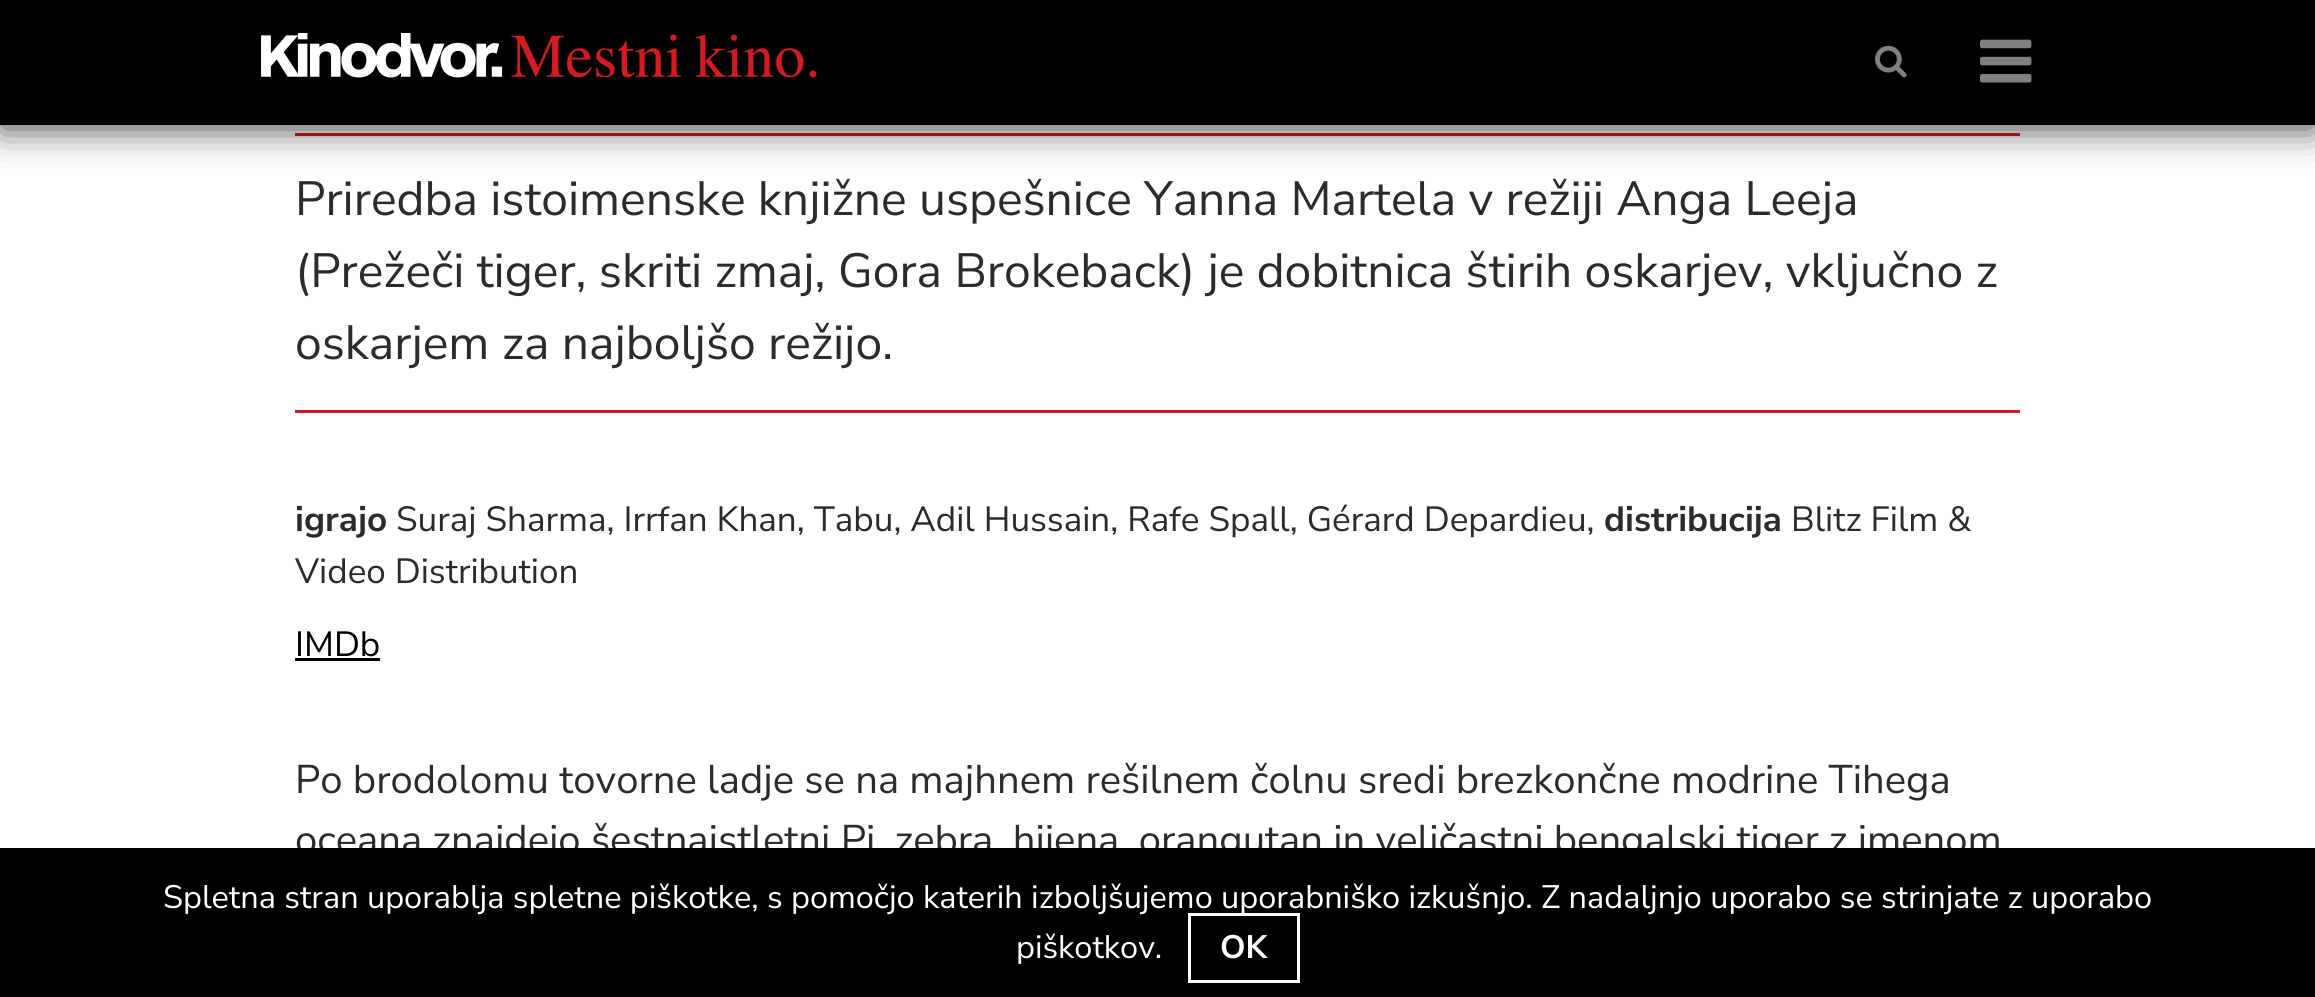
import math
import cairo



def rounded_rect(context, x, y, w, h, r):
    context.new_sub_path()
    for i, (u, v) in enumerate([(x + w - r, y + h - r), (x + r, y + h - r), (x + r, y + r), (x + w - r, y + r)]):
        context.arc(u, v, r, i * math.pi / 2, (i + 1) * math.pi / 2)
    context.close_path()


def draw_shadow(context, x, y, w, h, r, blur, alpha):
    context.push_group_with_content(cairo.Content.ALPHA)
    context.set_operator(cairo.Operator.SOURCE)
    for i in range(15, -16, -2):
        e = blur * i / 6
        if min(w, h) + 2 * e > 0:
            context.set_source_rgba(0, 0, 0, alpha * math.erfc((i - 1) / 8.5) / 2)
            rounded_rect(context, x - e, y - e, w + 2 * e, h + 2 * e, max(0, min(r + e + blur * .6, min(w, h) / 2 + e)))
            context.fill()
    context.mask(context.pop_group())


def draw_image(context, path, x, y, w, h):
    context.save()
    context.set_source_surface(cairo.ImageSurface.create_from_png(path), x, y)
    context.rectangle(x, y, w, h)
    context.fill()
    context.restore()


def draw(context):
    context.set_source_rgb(1, 1, 1)
    context.paint()
    context.set_source_rgb(215 / 255, 25 / 255, 32 / 255)
    context.rectangle(295, 133, 1725, 3)
    context.fill()
    context.set_source_rgb(0, 0, 0)
    draw_shadow(context, 0, 3, 2315, 125, 0, 19, 0.75)
    context.set_source_rgb(0, 0, 0)
    context.rectangle(0, 0, 2315, 125)
    context.fill()
    draw_image(context, "images/1.png", 261, 33, 556, 45)
    draw_image(context, "images/2.png", 1875, 45, 32, 33)
    draw_image(context, "images/3.png", 1980, 39, 52, 44)
    context.set_source_rgb(215 / 255, 25 / 255, 32 / 255)
    context.rectangle(295, 410, 1725, 3)
    context.fill()
    context.set_source_rgb(0, 0, 0)
    context.rectangle(295, 658, 85, 3)
    context.fill()
    context.select_font_face("Nunito Sans")
    context.set_font_size(48)
    context.set_source_rgb(41 / 255, 43 / 255, 44 / 255)
    context.move_to(295, 215)
    context.show_text("Priredba istoimenske knjižne uspešnice Yanna Martela v režiji Anga Leeja")
    context.move_to(295, 287)
    context.show_text("(Prežeči tiger, skriti zmaj, Gora Brokeback) je dobitnica štirih oskarjev, vključno z")
    context.move_to(295, 359)
    context.show_text("oskarjem za najboljšo režijo.")
    context.select_font_face("Nunito Sans", cairo.FontSlant.NORMAL, cairo.FontWeight.BOLD)
    context.set_font_size(35)
    context.move_to(295, 531)
    context.show_text("igrajo")
    context.select_font_face("Nunito Sans")
    context.move_to(396, 531)
    context.show_text("Suraj Sharma, Irrfan Khan, Tabu, Adil Hussain, Rafe Spall, Gérard Depardieu,")
    context.select_font_face("Nunito Sans", cairo.FontSlant.NORMAL, cairo.FontWeight.BOLD)
    context.move_to(1604, 531)
    context.show_text("distribucija")
    context.select_font_face("Nunito Sans")
    context.move_to(1791, 531)
    context.show_text("Blitz Film &")
    context.move_to(295, 583)
    context.show_text("Video Distribution")
    context.set_source_rgb(0, 0, 0)
    context.move_to(295, 656)
    context.show_text("IMDb")
    context.set_font_size(40)
    context.set_source_rgb(41 / 255, 43 / 255, 44 / 255)
    context.move_to(295, 793)
    context.show_text("Po brodolomu tovorne ladje se na majhnem rešilnem čolnu sredi brezkončne modrine Tihega")
    context.move_to(295, 853)
    context.show_text("oceana znajdejo šestnajstletni Pi, zebra, hijena, orangutan in veličastni bengalski tiger z imenom")
    context.set_source_rgb(0, 0, 0)
    context.rectangle(0, 848, 2315, 149)
    context.fill()
    context.set_font_size(32.5)
    context.set_source_rgb(1, 1, 1)
    context.move_to(163, 908)
    context.show_text("Spletna stran uporablja spletne piškotke, s pomočjo katerih izboljšujemo uporabniško izkušnjo. Z nadaljnjo uporabo se strinjate z uporabo")
    context.move_to(1016, 958)
    context.show_text("piškotkov.")
    context.rectangle(1189.5, 914.5, 109, 67)
    context.set_line_width(3)
    context.stroke()
    context.select_font_face("Nunito Sans", cairo.FontSlant.NORMAL, cairo.FontWeight.BOLD)
    context.move_to(1220, 958)
    context.show_text("OK")


surface = cairo.ImageSurface(cairo.Format.RGB24, 2315, 997)
context = cairo.Context(surface)
options = cairo.FontOptions()
options.set_hint_metrics(cairo.HintMetrics.OFF)
options.set_hint_style(cairo.HintStyle.NONE)
context.set_font_options(options)
context.set_miter_limit(4)
draw(context)
surface.write_to_png("out.png")
